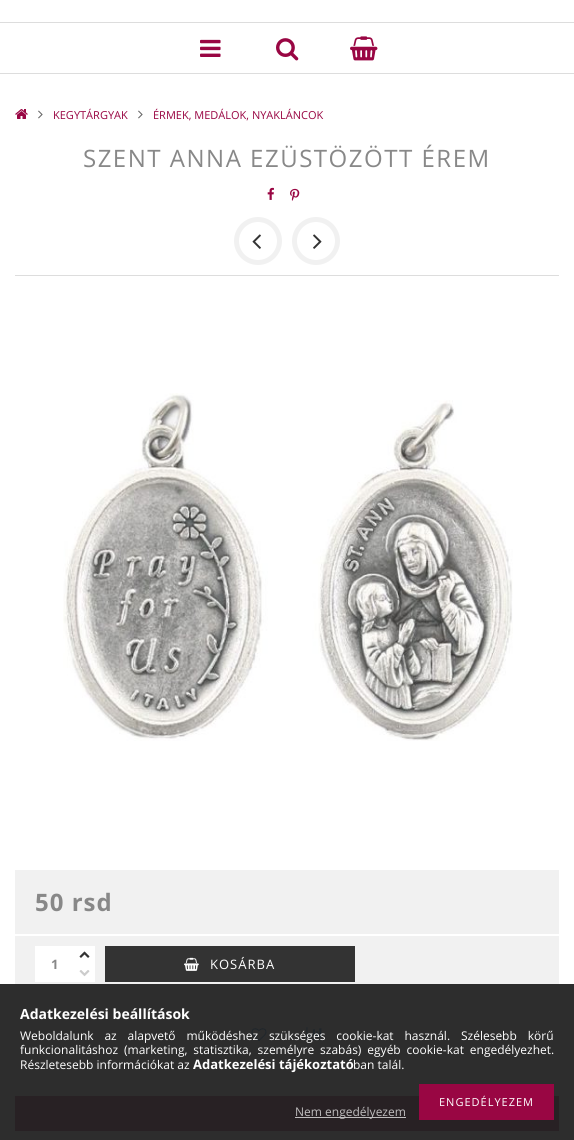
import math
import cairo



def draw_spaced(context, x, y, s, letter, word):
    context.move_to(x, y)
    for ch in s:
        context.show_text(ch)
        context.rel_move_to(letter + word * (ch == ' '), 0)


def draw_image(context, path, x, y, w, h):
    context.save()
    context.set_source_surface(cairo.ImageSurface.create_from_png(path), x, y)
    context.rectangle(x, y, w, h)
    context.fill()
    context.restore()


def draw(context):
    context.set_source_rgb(1, 1, 1)
    context.paint()
    context.set_source_rgb(45 / 255, 45 / 255, 45 / 255)
    context.rectangle(0, 984, 574, 156)
    context.fill()
    context.set_source_rgb(221 / 255, 221 / 255, 221 / 255)
    context.rectangle(0, 22, 574, 1)
    context.fill()
    context.rectangle(0, 73, 574, 1)
    context.fill()
    draw_image(context, "images/1.png", 200, 39, 21, 18)
    draw_image(context, "images/2.png", 276, 38, 23, 23)
    draw_image(context, "images/3.png", 350, 36, 28, 25)
    draw_image(context, "images/4.png", 15, 109, 13, 10)
    draw_image(context, "images/5.png", 38, 110, 5, 9)
    draw_image(context, "images/5.png", 138, 110, 5, 9)
    context.rectangle(15, 275, 544, 1)
    context.fill()
    draw_image(context, "images/6.png", 267, 187, 7, 13)
    draw_image(context, "images/7.png", 290, 188, 10, 13)
    context.arc(258, 241, 21.5, 0, 2 * math.pi)
    context.set_source_rgb(241 / 255, 241 / 255, 241 / 255)
    context.set_line_width(5)
    context.stroke()
    draw_image(context, "images/8.png", 252, 234, 9, 15)
    context.arc(316, 241, 21.5, 0, 2 * math.pi)
    context.stroke()
    draw_image(context, "images/9.png", 313, 234, 9, 15)
    draw_image(context, "images/10.png", 63, 393, 450, 348)
    context.rectangle(15, 870, 544, 64)
    context.fill()
    context.rectangle(15, 936, 544, 48)
    context.fill()
    context.set_source_rgb(1, 1, 1)
    context.rectangle(35, 946, 40, 36)
    context.fill()
    context.rectangle(75, 946, 20, 36)
    context.fill()
    draw_image(context, "images/11.png", 79, 951, 11, 7)
    draw_image(context, "images/12.png", 79, 970, 11, 7)
    context.set_source_rgb(51 / 255, 51 / 255, 51 / 255)
    context.rectangle(105, 946, 250, 36)
    context.fill()
    draw_image(context, "images/13.png", 184, 957, 15, 14)
    draw_image(context, "images/14.png", 251, 1028, 16, 13)
    draw_image(context, "images/15.png", 306, 1027, 18, 14)
    context.set_source_rgb(40 / 255, 33 / 255, 36 / 255)
    context.rectangle(15, 1096, 544, 35)
    context.fill()
    context.set_source_rgb(153 / 255, 6 / 255, 67 / 255)
    context.rectangle(419, 1084, 135, 36)
    context.fill()
    context.set_source_rgba(1, 1, 1, 0.7)
    context.rectangle(295, 1117, 111, 1)
    context.fill()
    context.select_font_face("Open Sans")
    context.set_font_size(11)
    context.set_source_rgb(153 / 255, 6 / 255, 67 / 255)
    context.move_to(53, 119)
    context.show_text("KEGYTÁRGYAK")
    context.move_to(153, 119)
    context.show_text("ÉRMEK, MEDÁLOK, NYAKLÁNCOK")
    context.set_font_size(24)
    context.set_source_rgb(136 / 255, 136 / 255, 136 / 255)
    draw_spaced(context, 83, 167, "SZENT ANNA EZÜSTÖZÖTT ÉREM", 1.5, 0)
    context.select_font_face("Open Sans", cairo.FontSlant.NORMAL, cairo.FontWeight.BOLD)
    draw_spaced(context, 35, 911, "50 rsd", 1, 0)
    context.set_font_size(13)
    context.move_to(51, 969)
    context.show_text("1")
    context.select_font_face("Open Sans")
    context.set_source_rgb(1, 1, 1)
    draw_spaced(context, 210, 969, "KOSÁRBA", 1, 0)
    context.select_font_face("Open Sans", cairo.FontSlant.NORMAL, cairo.FontWeight.BOLD)
    context.set_font_size(14)
    context.move_to(20, 1019)
    context.show_text("Adatkezelési beállítások")
    context.select_font_face("Open Sans")
    context.set_font_size(12)
    draw_spaced(context, 20, 1040, "Weboldalunk az alapvető működéshez szükséges cookie-kat használ. Szélesebb körű", 0, 7.75)
    draw_spaced(context, 20, 1054, "funkcionalitáshoz (marketing, statisztika, személyre szabás) egyéb cookie-kat engedélyezhet.", 0, 2.75)
    context.move_to(20, 1069)
    context.show_text("Részletesebb információkat az")
    context.select_font_face("Open Sans", cairo.FontSlant.NORMAL, cairo.FontWeight.BOLD)
    context.set_font_size(13)
    context.move_to(193, 1069)
    context.show_text("Adatkezelési tájékoztató")
    context.select_font_face("Open Sans")
    context.set_font_size(12)
    context.move_to(353, 1069)
    context.show_text("ban talál.")
    context.set_font_size(11)
    draw_spaced(context, 439, 1106, "ENGEDÉLYEZEM", 1, 0)
    context.set_font_size(12)
    context.set_source_rgb(191 / 255, 189 / 255, 190 / 255)
    context.move_to(295, 1116)
    context.show_text("Nem engedélyezem")


surface = cairo.ImageSurface(cairo.Format.RGB24, 574, 1140)
context = cairo.Context(surface)
options = cairo.FontOptions()
options.set_hint_metrics(cairo.HintMetrics.OFF)
options.set_hint_style(cairo.HintStyle.NONE)
context.set_font_options(options)
context.set_miter_limit(4)
draw(context)
surface.write_to_png("out.png")
